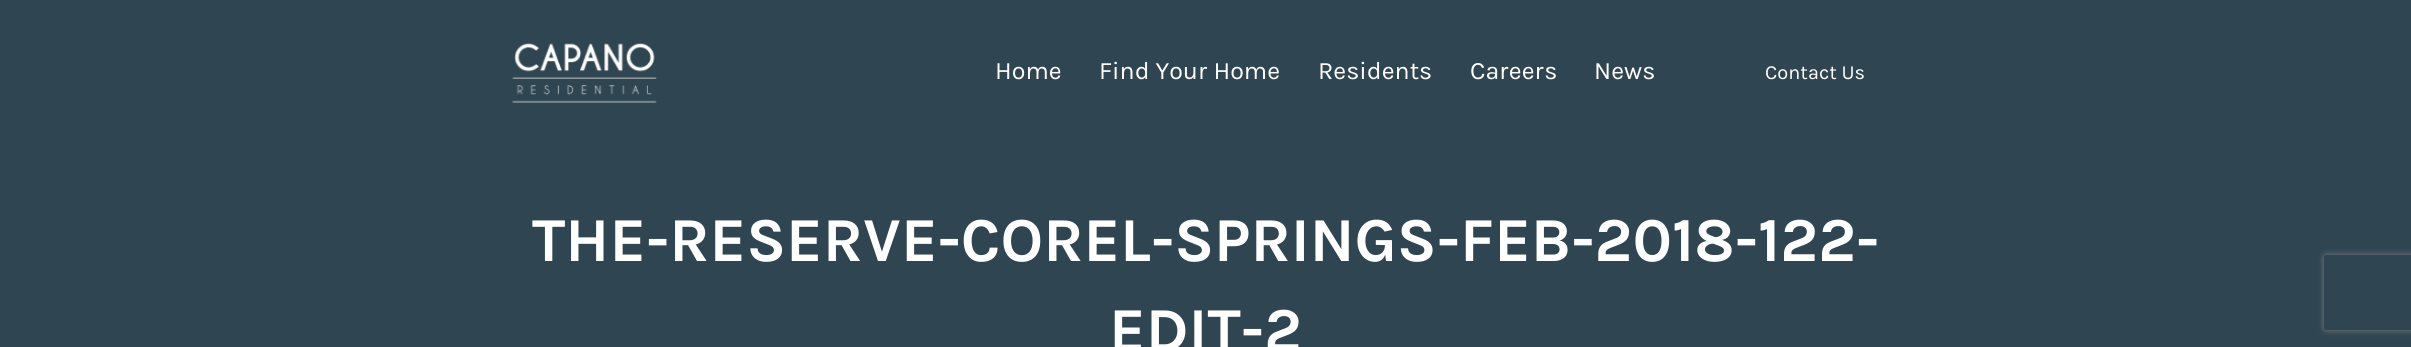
import math
import cairo



def rounded_rect(context, x, y, w, h, r):
    context.new_sub_path()
    for i, (u, v) in enumerate([(x + w - r, y + h - r), (x + r, y + h - r), (x + r, y + r), (x + w - r, y + r)]):
        context.arc(u, v, r, i * math.pi / 2, (i + 1) * math.pi / 2)
    context.close_path()


def draw_shadow(context, x, y, w, h, r, blur, alpha):
    context.push_group_with_content(cairo.Content.ALPHA)
    context.set_operator(cairo.Operator.SOURCE)
    for i in range(15, -16, -2):
        e = blur * i / 6
        if min(w, h) + 2 * e > 0:
            context.set_source_rgba(0, 0, 0, alpha * math.erfc((i - 1) / 8.5) / 2)
            rounded_rect(context, x - e, y - e, w + 2 * e, h + 2 * e, max(0, min(r + e + blur * .6, min(w, h) / 2 + e)))
            context.fill()
    context.mask(context.pop_group())


def draw_image(context, path, x, y, w, h):
    context.save()
    context.set_source_surface(cairo.ImageSurface.create_from_png(path), x, y)
    context.rectangle(x, y, w, h)
    context.fill()
    context.restore()


def draw(context):
    context.set_source_rgb(47 / 255, 69 / 255, 81 / 255)
    context.paint()
    draw_image(context, "images/1.png", 512, 43, 145, 60)
    context.save()
    context.set_fill_rule(cairo.FillRule.EVEN_ODD)
    context.new_path()
    context.move_to(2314, 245)
    context.line_to(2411, 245)
    context.line_to(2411, 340)
    context.line_to(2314, 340)
    context.close_path()
    context.move_to(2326.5, 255)
    context.line_to(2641.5, 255)
    context.curve_to(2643, 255, 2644, 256, 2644, 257.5)
    context.line_to(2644, 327.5)
    context.curve_to(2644, 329, 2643, 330, 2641.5, 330)
    context.line_to(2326.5, 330)
    context.curve_to(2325, 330, 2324, 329, 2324, 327.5)
    context.line_to(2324, 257.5)
    context.curve_to(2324, 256, 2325, 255, 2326.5, 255)
    context.close_path()
    context.clip()
    context.set_source_rgb(128 / 255, 128 / 255, 128 / 255)
    draw_shadow(context, 2324, 255, 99, 75, 2.5, 3, 1)
    context.restore()
    context.select_font_face("Karla")
    context.set_font_size(25)
    context.set_source_rgb(1, 1, 1)
    context.move_to(995, 79)
    context.show_text("Home")
    context.move_to(1099, 79)
    context.show_text("Find Your Home")
    context.move_to(1318, 79)
    context.show_text("Residents")
    context.move_to(1470, 79)
    context.show_text("Careers")
    context.move_to(1594, 79)
    context.show_text("News")
    context.set_font_size(20)
    context.move_to(1765, 79)
    context.show_text("Contact Us")
    context.select_font_face("Karla", cairo.FontSlant.NORMAL, cairo.FontWeight.BOLD)
    context.set_font_size(62.5)
    context.move_to(532, 261)
    context.show_text("THE-RESERVE-COREL-SPRINGS-FEB-2018-122-")
    context.move_to(1109, 351)
    context.show_text("EDIT-2")


surface = cairo.ImageSurface(cairo.Format.RGB24, 2411, 347)
context = cairo.Context(surface)
options = cairo.FontOptions()
options.set_hint_metrics(cairo.HintMetrics.OFF)
options.set_hint_style(cairo.HintStyle.NONE)
context.set_font_options(options)
context.set_miter_limit(4)
draw(context)
surface.write_to_png("out.png")
